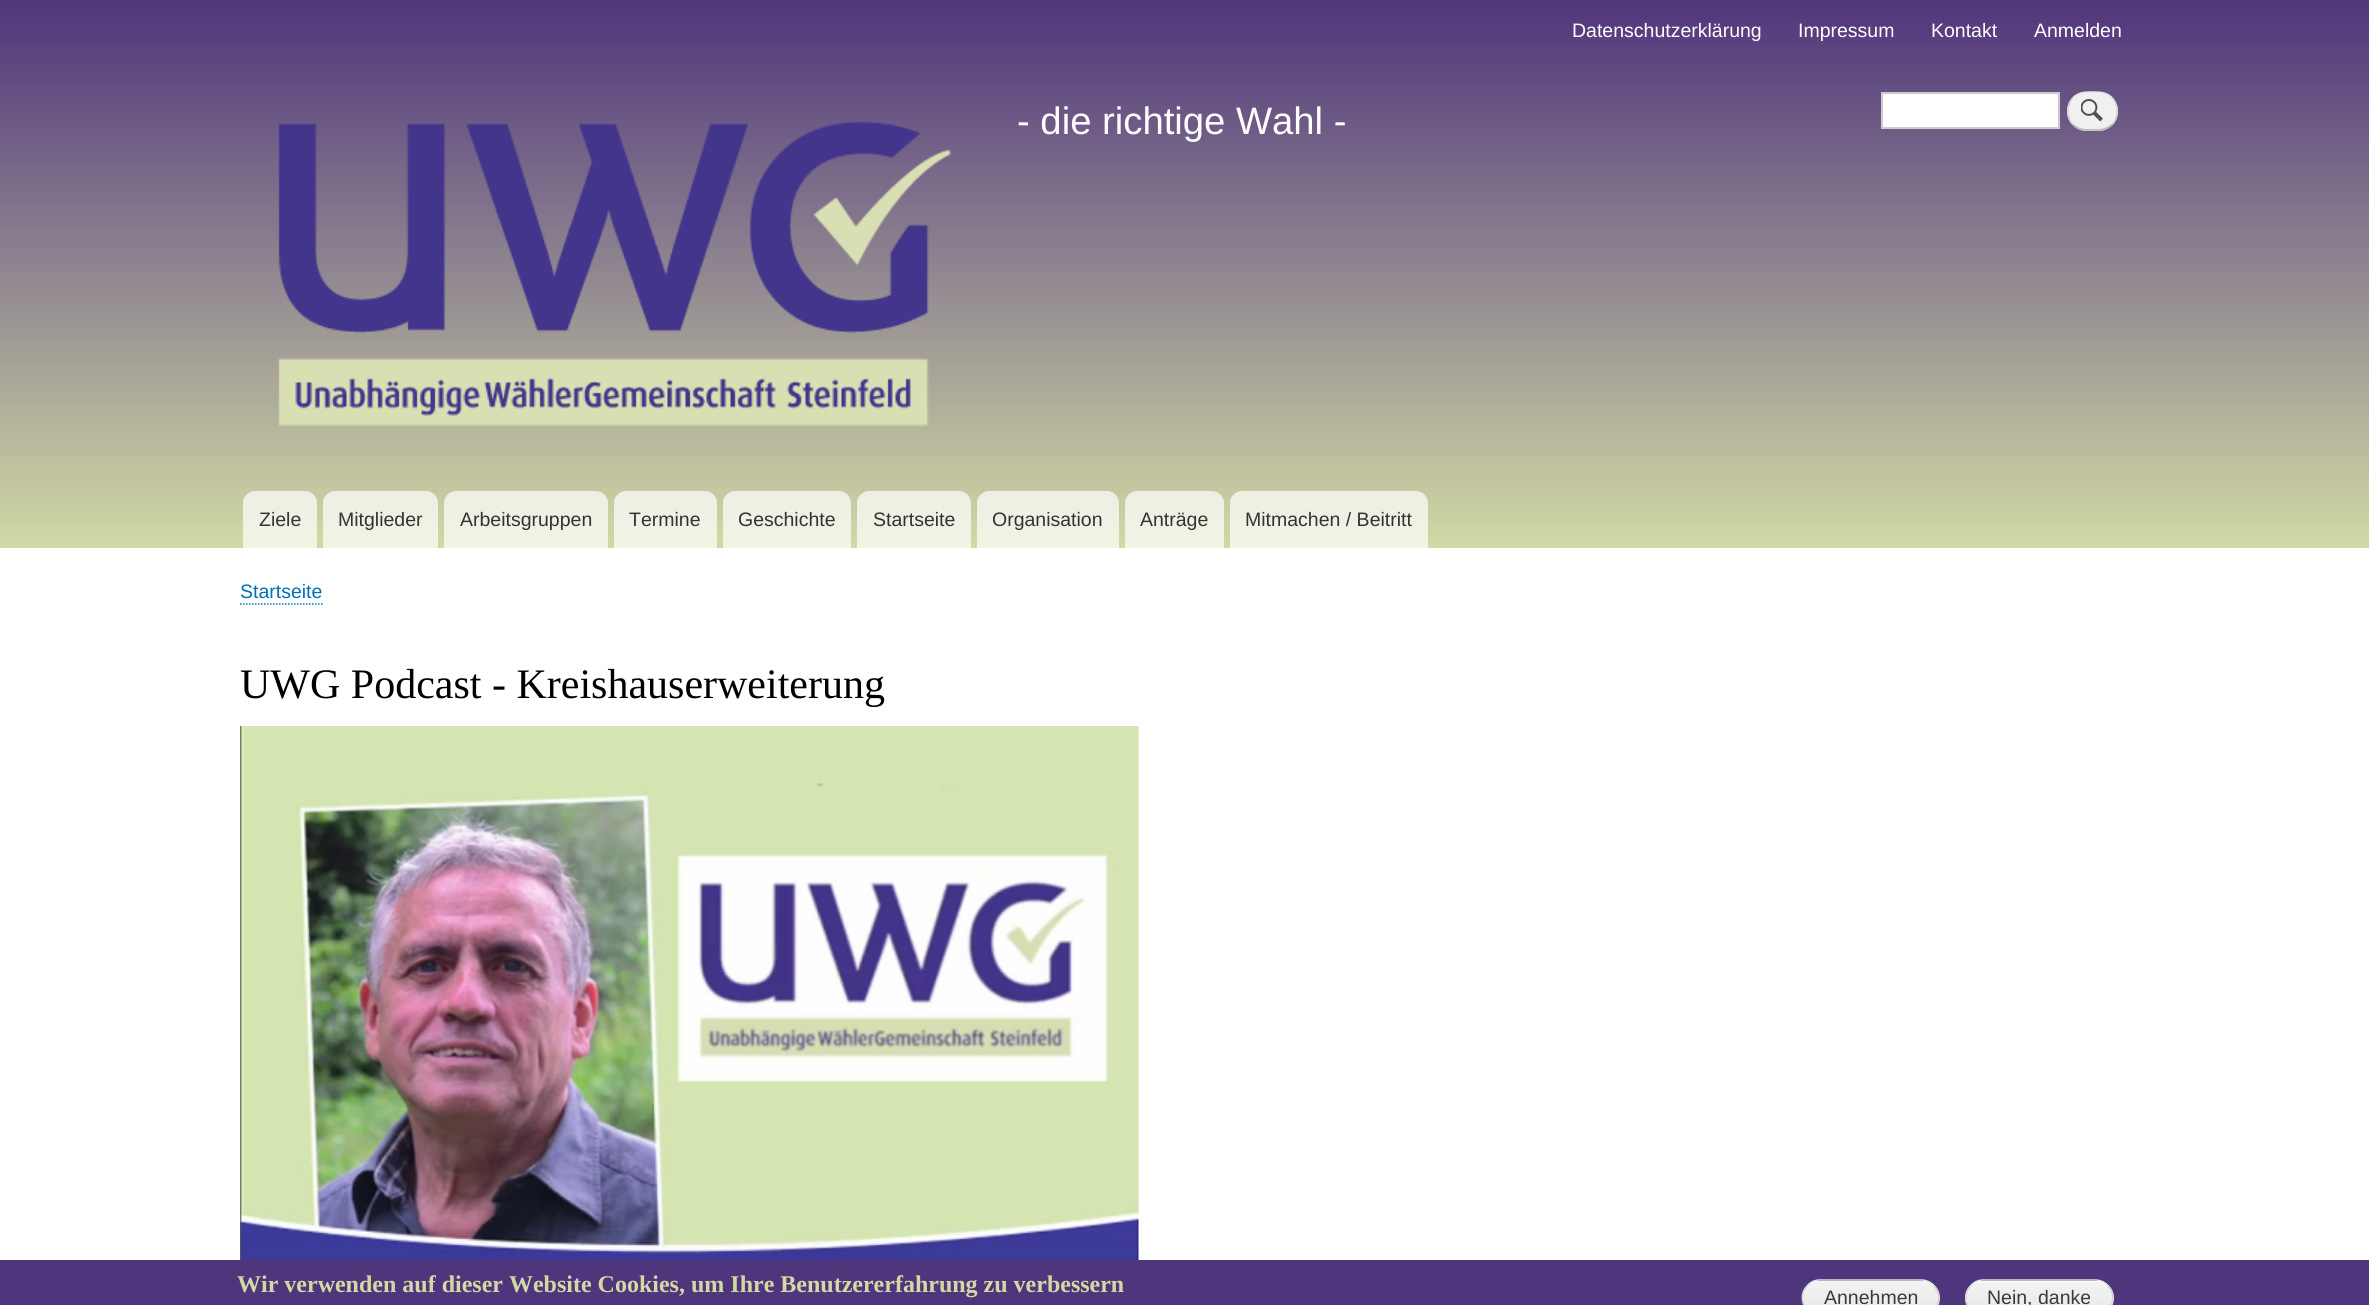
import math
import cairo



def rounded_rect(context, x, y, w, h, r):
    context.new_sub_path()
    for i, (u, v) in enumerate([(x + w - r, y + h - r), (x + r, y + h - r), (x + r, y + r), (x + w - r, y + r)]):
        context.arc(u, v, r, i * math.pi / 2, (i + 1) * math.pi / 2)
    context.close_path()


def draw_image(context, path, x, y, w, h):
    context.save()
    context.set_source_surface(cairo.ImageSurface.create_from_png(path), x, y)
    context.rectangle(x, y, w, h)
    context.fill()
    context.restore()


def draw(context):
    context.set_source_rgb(1, 1, 1)
    context.paint()
    gradient = cairo.LinearGradient(1185, 0, 1185, 548)
    gradient.add_color_stop_rgba(0, 79 / 255, 53 / 255, 124 / 255, 1)
    gradient.add_color_stop_rgba(1, 210 / 255, 217 / 255, 165 / 255, 1)
    context.set_source(gradient)
    context.rectangle(0, 0, 2369, 548)
    context.fill()
    draw_image(context, "images/1.png", 278, 121, 674, 306)
    context.set_source_rgb(1, 1, 1)
    context.rectangle(1882, 93, 177, 35)
    context.fill_preserve()
    context.set_source_rgb(204 / 255, 204 / 255, 204 / 255)
    context.stroke()
    context.set_source_rgb(240 / 255, 240 / 255, 240 / 255)
    rounded_rect(context, 2067, 92, 51, 39, 19.5)
    context.fill()
    draw_image(context, "images/2.png", 2081, 99, 22, 23)
    context.new_path()
    context.move_to(2073, 97.5)
    context.curve_to(2079, 92, 2085, 92, 2092.5, 92)
    context.curve_to(2100, 92, 2106, 92, 2112, 97.5)
    context.set_source_rgb(228 / 255, 228 / 255, 228 / 255)
    context.set_line_width(1.5)
    context.stroke()
    context.new_path()
    context.move_to(2112, 97.5)
    context.curve_to(2119, 105, 2119, 117, 2112, 124.5)
    context.set_source_rgb(210 / 255, 210 / 255, 210 / 255)
    context.stroke()
    context.new_path()
    context.move_to(2112, 124.5)
    context.curve_to(2106, 130, 2100, 130, 2092.5, 130)
    context.curve_to(2085, 130, 2079, 130, 2073, 124.5)
    context.set_source_rgb(180 / 255, 180 / 255, 180 / 255)
    context.stroke()
    context.new_path()
    context.move_to(2073, 124.5)
    context.curve_to(2066, 117, 2066, 105, 2073, 97.5)
    context.set_source_rgb(210 / 255, 210 / 255, 210 / 255)
    context.stroke()
    context.set_source_rgba(1, 1, 1, 0.7)
    context.new_path()
    context.move_to(255, 491)
    context.line_to(305, 491)
    context.curve_to(311.5, 491, 317, 496.5, 317, 503)
    context.line_to(317, 548)
    context.line_to(243, 548)
    context.line_to(243, 503)
    context.curve_to(243, 496.5, 248.5, 491, 255, 491)
    context.close_path()
    context.fill()
    context.new_path()
    context.move_to(335, 491)
    context.line_to(426, 491)
    context.curve_to(432.5, 491, 438, 496.5, 438, 503)
    context.line_to(438, 548)
    context.line_to(323, 548)
    context.line_to(323, 503)
    context.curve_to(323, 496.5, 328.5, 491, 335, 491)
    context.close_path()
    context.fill()
    context.new_path()
    context.move_to(456, 491)
    context.line_to(596, 491)
    context.curve_to(602.5, 491, 608, 496.5, 608, 503)
    context.line_to(608, 548)
    context.line_to(444, 548)
    context.line_to(444, 503)
    context.curve_to(444, 496.5, 449.5, 491, 456, 491)
    context.close_path()
    context.fill()
    context.new_path()
    context.move_to(626, 491)
    context.line_to(705, 491)
    context.curve_to(711.5, 491, 717, 496.5, 717, 503)
    context.line_to(717, 548)
    context.line_to(614, 548)
    context.line_to(614, 503)
    context.curve_to(614, 496.5, 619.5, 491, 626, 491)
    context.close_path()
    context.fill()
    context.new_path()
    context.move_to(735, 491)
    context.line_to(839, 491)
    context.curve_to(845.5, 491, 851, 496.5, 851, 503)
    context.line_to(851, 548)
    context.line_to(723, 548)
    context.line_to(723, 503)
    context.curve_to(723, 496.5, 728.5, 491, 735, 491)
    context.close_path()
    context.fill()
    context.new_path()
    context.move_to(869, 491)
    context.line_to(959, 491)
    context.curve_to(965.5, 491, 971, 496.5, 971, 503)
    context.line_to(971, 548)
    context.line_to(857, 548)
    context.line_to(857, 503)
    context.curve_to(857, 496.5, 862.5, 491, 869, 491)
    context.close_path()
    context.fill()
    context.new_path()
    context.move_to(989, 491)
    context.line_to(1107, 491)
    context.curve_to(1113.5, 491, 1119, 496.5, 1119, 503)
    context.line_to(1119, 548)
    context.line_to(977, 548)
    context.line_to(977, 503)
    context.curve_to(977, 496.5, 982.5, 491, 989, 491)
    context.close_path()
    context.fill()
    context.new_path()
    context.move_to(1137, 491)
    context.line_to(1212, 491)
    context.curve_to(1218.5, 491, 1224, 496.5, 1224, 503)
    context.line_to(1224, 548)
    context.line_to(1125, 548)
    context.line_to(1125, 503)
    context.curve_to(1125, 496.5, 1130.5, 491, 1137, 491)
    context.close_path()
    context.fill()
    context.new_path()
    context.move_to(1242, 491)
    context.line_to(1416, 491)
    context.curve_to(1422.5, 491, 1428, 496.5, 1428, 503)
    context.line_to(1428, 548)
    context.line_to(1230, 548)
    context.line_to(1230, 503)
    context.curve_to(1230, 496.5, 1235.5, 491, 1242, 491)
    context.close_path()
    context.fill()
    context.new_path()
    context.move_to(240, 604)
    context.line_to(322.5, 604)
    context.set_source_rgb(0, 113 / 255, 179 / 255)
    context.set_dash([1.5, 1.5])
    context.stroke()
    draw_image(context, "images/3.png", 240, 726, 899, 534)
    context.set_source_rgb(79 / 255, 53 / 255, 124 / 255)
    context.rectangle(0, 1260, 2369, 45)
    context.fill()
    context.save()
    rounded_rect(context, 1802, 1280, 138, 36, 18)
    context.clip()
    gradient = cairo.LinearGradient(1871, 1281, 1871, 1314)
    gradient.add_color_stop_rgba(0, 243 / 255, 243 / 255, 243 / 255, 1)
    gradient.add_color_stop_rgba(1, 232 / 255, 232 / 255, 232 / 255, 1)
    context.set_source(gradient)
    context.rectangle(1802, 1281, 138, 24)
    context.fill()
    context.restore()
    context.new_path()
    context.move_to(1807.5, 1285.5)
    context.curve_to(1810.5, 1282, 1815, 1280, 1819.5, 1280)
    context.line_to(1921.5, 1280)
    context.curve_to(1926, 1280, 1930.5, 1282, 1933.5, 1285.5)
    context.set_source_rgb(228 / 255, 228 / 255, 228 / 255)
    context.set_dash([])
    context.stroke()
    context.new_path()
    context.move_to(1933.5, 1285.5)
    context.curve_to(1940.5, 1292, 1940.5, 1303, 1933.5, 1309.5)
    context.set_source_rgb(210 / 255, 210 / 255, 210 / 255)
    context.stroke()
    context.new_path()
    context.move_to(1807.5, 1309.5)
    context.curve_to(1800.5, 1303, 1800.5, 1292, 1807.5, 1285.5)
    context.stroke()
    context.save()
    rounded_rect(context, 1965, 1280, 149, 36, 18)
    context.clip()
    gradient = cairo.LinearGradient(2039, 1281, 2039, 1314)
    gradient.add_color_stop_rgba(0, 243 / 255, 243 / 255, 243 / 255, 1)
    gradient.add_color_stop_rgba(1, 232 / 255, 232 / 255, 232 / 255, 1)
    context.set_source(gradient)
    context.rectangle(1965, 1281, 149, 24)
    context.fill()
    context.restore()
    context.set_source_rgb(1, 1, 1)
    context.new_path()
    context.move_to(1983, 1282)
    context.line_to(2096, 1282)
    context.curve_to(2105, 1282, 2112, 1290, 2112, 1298)
    context.curve_to(2112, 1288, 2105, 1281, 2096, 1281)
    context.line_to(1984, 1281)
    context.curve_to(1977, 1281, 1972, 1285, 1969, 1290)
    context.curve_to(1972, 1285, 1977, 1282, 1983, 1282)
    context.close_path()
    context.fill()
    context.new_path()
    context.move_to(1971, 1285.5)
    context.curve_to(1974, 1282, 1978.5, 1280, 1983, 1280)
    context.line_to(2095.5, 1280)
    context.curve_to(2100, 1280, 2104.5, 1282, 2107.5, 1285.5)
    context.set_source_rgb(228 / 255, 228 / 255, 228 / 255)
    context.stroke()
    context.new_path()
    context.move_to(2107.5, 1285.5)
    context.curve_to(2114.5, 1292, 2114.5, 1303, 2107.5, 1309.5)
    context.set_source_rgb(210 / 255, 210 / 255, 210 / 255)
    context.stroke()
    context.new_path()
    context.move_to(1971, 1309.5)
    context.curve_to(1964, 1303, 1964, 1292, 1971, 1285.5)
    context.stroke()
    context.select_font_face("Liberation Sans")
    context.set_font_size(19.5)
    context.set_source_rgb(1, 254 / 255, 1)
    context.move_to(1572, 37)
    context.show_text("Datenschutzerklärung")
    context.move_to(1798, 37)
    context.show_text("Impressum")
    context.move_to(1931, 37)
    context.show_text("Kontakt")
    context.move_to(2034, 37)
    context.show_text("Anmelden")
    context.set_font_size(38.25)
    context.move_to(1017, 134)
    context.show_text("- die richtige Wahl -")
    context.set_font_size(19.5)
    context.set_source_rgb(51 / 255, 51 / 255, 51 / 255)
    context.move_to(259, 526)
    context.show_text("Ziele")
    context.move_to(338, 526)
    context.show_text("Mitglieder")
    context.move_to(460, 526)
    context.show_text("Arbeitsgruppen")
    context.move_to(629, 526)
    context.show_text("Termine")
    context.move_to(738, 526)
    context.show_text("Geschichte")
    context.move_to(873, 526)
    context.show_text("Startseite")
    context.move_to(992, 526)
    context.show_text("Organisation")
    context.move_to(1140, 526)
    context.show_text("Anträge")
    context.move_to(1245, 526)
    context.show_text("Mitmachen / Beitritt")
    context.set_source_rgb(0, 113 / 255, 179 / 255)
    context.move_to(240, 598)
    context.show_text("Startseite")
    context.select_font_face("Liberation Serif")
    context.set_font_size(42)
    context.set_source_rgb(0, 0, 0)
    context.move_to(240, 698)
    context.show_text("UWG Podcast - Kreishauserweiterung")
    context.select_font_face("Liberation Serif", cairo.FontSlant.NORMAL, cairo.FontWeight.BOLD)
    context.set_font_size(24)
    context.set_source_rgb(210 / 255, 217 / 255, 165 / 255)
    context.move_to(237, 1292)
    context.show_text("Wir verwenden auf dieser Website Cookies, um Ihre Benutzererfahrung zu verbessern")
    context.select_font_face("Liberation Sans")
    context.set_font_size(19.5)
    context.set_source_rgb(58 / 255, 58 / 255, 58 / 255)
    context.move_to(1824, 1304)
    context.show_text("Annehmen")
    context.move_to(1987, 1304)
    context.show_text("Nein, danke")


surface = cairo.ImageSurface(cairo.Format.RGB24, 2369, 1305)
context = cairo.Context(surface)
options = cairo.FontOptions()
options.set_hint_metrics(cairo.HintMetrics.OFF)
options.set_hint_style(cairo.HintStyle.NONE)
context.set_font_options(options)
context.set_miter_limit(4)
draw(context)
surface.write_to_png("out.png")
